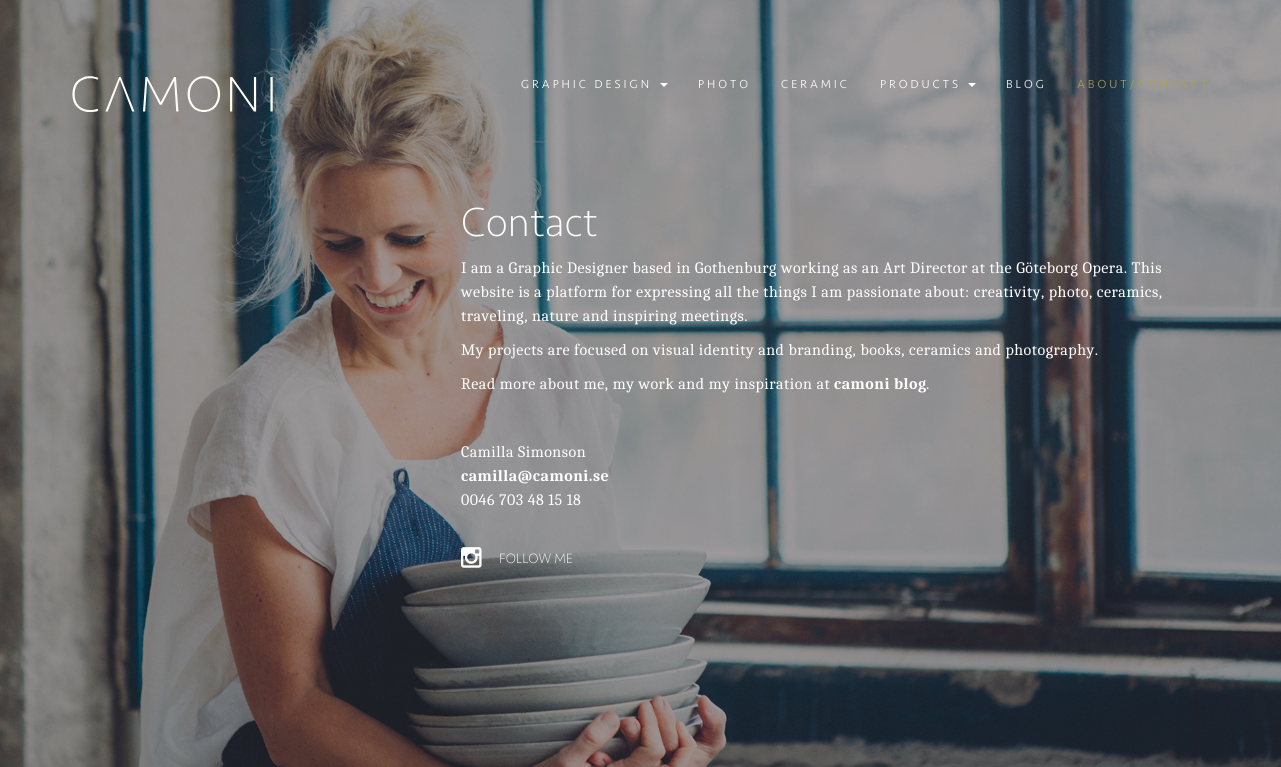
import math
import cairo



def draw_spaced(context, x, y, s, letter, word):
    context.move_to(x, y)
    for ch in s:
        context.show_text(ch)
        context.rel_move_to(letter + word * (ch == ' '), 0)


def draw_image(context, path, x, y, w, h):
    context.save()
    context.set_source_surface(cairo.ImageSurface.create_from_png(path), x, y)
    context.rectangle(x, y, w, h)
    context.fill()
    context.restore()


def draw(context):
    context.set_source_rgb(1, 1, 1)
    context.paint()
    draw_image(context, "images/2.png", 0, 0, 1281, 767)
    draw_image(context, "images/1.png", 72, 76, 201, 36)
    context.set_source_rgb(1, 254 / 255, 253 / 255)
    context.new_path()
    context.move_to(660, 83)
    context.line_to(668, 83)
    context.line_to(664, 87)
    context.close_path()
    context.fill()
    context.new_path()
    context.move_to(968, 83)
    context.line_to(976, 83)
    context.line_to(972, 87)
    context.close_path()
    context.fill()
    draw_image(context, "images/3.png", 461, 547, 21, 21)
    context.select_font_face("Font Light")
    context.set_font_size(12)
    draw_spaced(context, 521, 88, "GRAPHIC DESIGN", 3, 0)
    draw_spaced(context, 698, 88, "PHOTO", 3, 0)
    draw_spaced(context, 781, 88, "CERAMIC", 3, 0)
    draw_spaced(context, 880, 88, "PRODUCTS", 3, 0)
    draw_spaced(context, 1006, 88, "BLOG", 3, 0)
    context.set_source_rgb(166 / 255, 162 / 255, 83 / 255)
    draw_spaced(context, 1077, 88, "ABOUT/CONTACT", 3, 0)
    context.select_font_face("Font ExtraLight")
    context.set_font_size(42)
    context.set_source_rgb(1, 254 / 255, 253 / 255)
    context.move_to(461, 236)
    context.show_text("Contact")
    context.select_font_face("Caladea")
    context.set_font_size(16)
    draw_spaced(context, 461, 273, "I am a Graphic Designer based in Gothenburg working as an Art Director at the Göteborg Opera. This", 0.5, 0)
    draw_spaced(context, 461, 297, "website is a platform for expressing all the things I am passionate about: creativity, photo, ceramics,", 0.5, 0)
    draw_spaced(context, 461, 321, "traveling, nature and inspiring meetings.", 0.5, 0)
    draw_spaced(context, 461, 355, "My projects are focused on visual identity and branding, books, ceramics and photography.", 0.5, 0)
    draw_spaced(context, 461, 389, "Read more about me, my work and my inspiration at", 0.5, 0)
    context.select_font_face("Caladea", cairo.FontSlant.NORMAL, cairo.FontWeight.BOLD)
    draw_spaced(context, 834, 389, "camoni blog", 0.5, 0)
    context.select_font_face("Caladea")
    draw_spaced(context, 926, 389, ".", 0.5, 0)
    draw_spaced(context, 461, 457, "Camilla Simonson", 0.5, 0)
    context.select_font_face("Caladea", cairo.FontSlant.NORMAL, cairo.FontWeight.BOLD)
    draw_spaced(context, 461, 481, "camilla@camoni.se", 0.5, 0)
    context.select_font_face("Caladea")
    draw_spaced(context, 461, 505, "0046 703 48 15 18", 0.5, 0)
    context.select_font_face("Font ExtraLight")
    context.set_font_size(14)
    context.move_to(499, 563)
    context.show_text("FOLLOW ME")


surface = cairo.ImageSurface(cairo.Format.RGB24, 1281, 767)
context = cairo.Context(surface)
options = cairo.FontOptions()
options.set_hint_metrics(cairo.HintMetrics.OFF)
options.set_hint_style(cairo.HintStyle.NONE)
context.set_font_options(options)
context.set_miter_limit(4)
draw(context)
surface.write_to_png("out.png")
